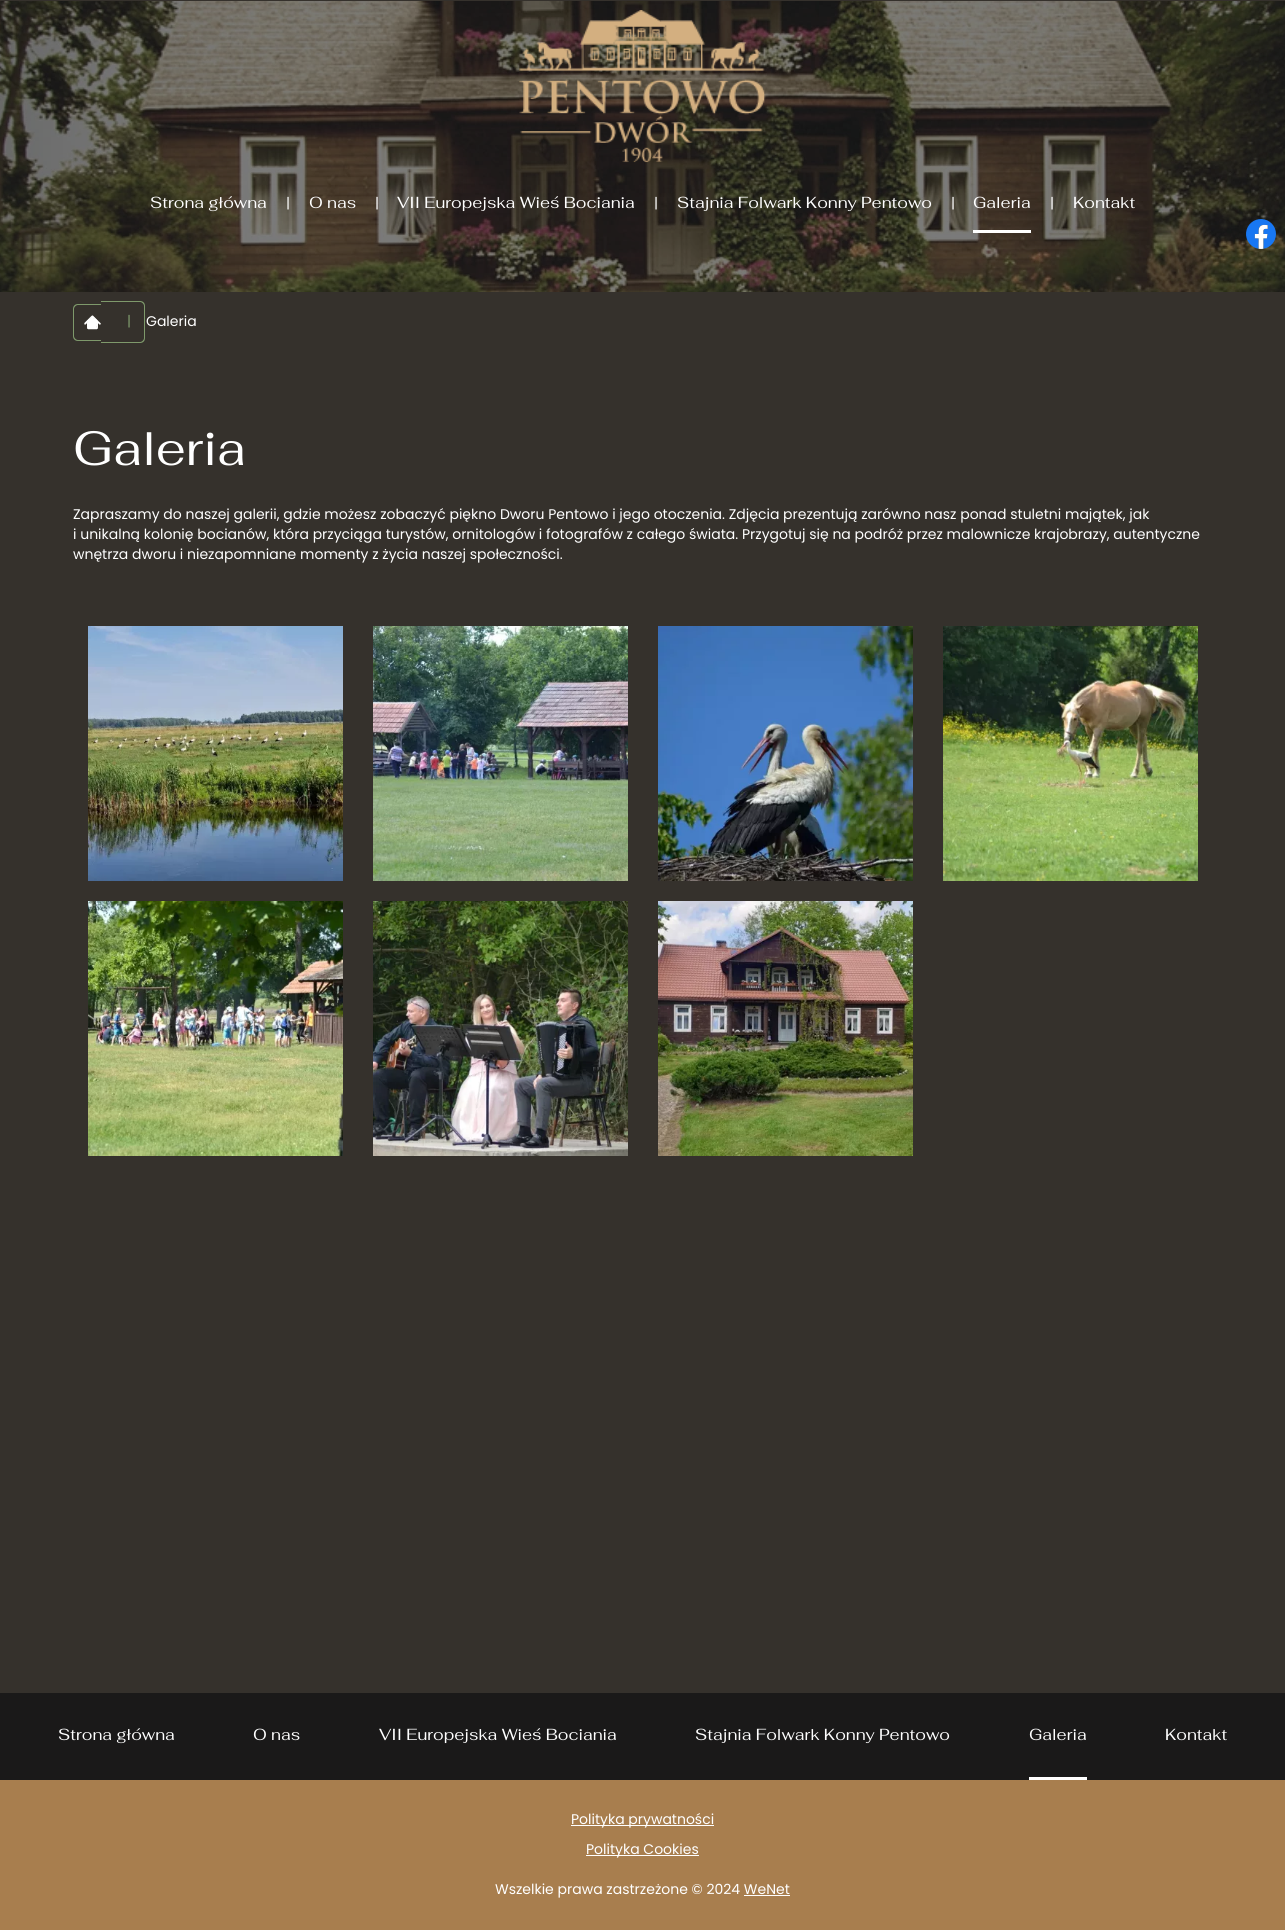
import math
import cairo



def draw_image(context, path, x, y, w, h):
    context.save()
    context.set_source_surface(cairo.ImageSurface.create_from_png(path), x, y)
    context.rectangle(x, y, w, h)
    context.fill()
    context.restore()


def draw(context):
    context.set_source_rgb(53 / 255, 49 / 255, 44 / 255)
    context.paint()
    draw_image(context, "images/2.png", 0, 1, 1285, 291)
    draw_image(context, "images/1.png", 519, 10, 247, 153)
    context.set_source_rgb(1, 1, 1)
    context.rectangle(973, 230, 58, 3)
    context.fill()
    context.set_source_rgb(126 / 255, 153 / 255, 107 / 255)
    context.set_fill_rule(cairo.FillRule.EVEN_ODD)
    context.new_path()
    context.move_to(78, 304)
    context.line_to(101, 304)
    context.line_to(101, 341)
    context.line_to(78, 341)
    context.curve_to(75, 341, 73, 339, 73, 336)
    context.line_to(73, 309)
    context.curve_to(73, 306, 75, 304, 78, 304)
    context.close_path()
    context.move_to(78, 305)
    context.line_to(101, 305)
    context.line_to(101, 340)
    context.line_to(78, 340)
    context.curve_to(76, 340, 74, 338, 74, 336)
    context.line_to(74, 309)
    context.curve_to(74, 307, 76, 305, 78, 305)
    context.close_path()
    context.fill()
    context.new_path()
    context.move_to(101, 301)
    context.line_to(140, 301)
    context.curve_to(143, 301, 145, 303, 145, 306)
    context.line_to(145, 338)
    context.curve_to(145, 341, 143, 343, 140, 343)
    context.line_to(101, 343)
    context.close_path()
    context.move_to(101, 302)
    context.line_to(140, 302)
    context.curve_to(142, 302, 144, 304, 144, 306)
    context.line_to(144, 338)
    context.curve_to(144, 340, 142, 342, 140, 342)
    context.line_to(101, 342)
    context.close_path()
    context.fill()
    draw_image(context, "images/3.png", 84, 315, 17, 15)
    draw_image(context, "images/4.png", 88, 626, 255, 255)
    draw_image(context, "images/5.png", 373, 626, 255, 255)
    draw_image(context, "images/6.png", 658, 626, 255, 255)
    draw_image(context, "images/7.png", 943, 626, 255, 255)
    draw_image(context, "images/8.png", 88, 901, 255, 255)
    draw_image(context, "images/9.png", 373, 901, 255, 255)
    draw_image(context, "images/10.png", 658, 901, 255, 255)
    draw_image(context, "images/11.png", 1246, 219, 30, 30)
    context.set_source_rgb(26 / 255, 25 / 255, 25 / 255)
    context.rectangle(0, 1693, 1285, 87)
    context.fill()
    context.set_source_rgb(1, 1, 1)
    context.rectangle(1029, 1777, 58, 3)
    context.fill()
    context.set_source_rgb(168 / 255, 126 / 255, 78 / 255)
    context.rectangle(0, 1780, 1285, 150)
    context.fill()
    context.set_source_rgb(1, 1, 1)
    context.rectangle(571, 1825, 143, 1)
    context.fill()
    context.rectangle(586, 1855, 113, 1)
    context.fill()
    context.rectangle(744, 1895, 46, 1)
    context.fill()
    context.select_font_face("Fahkwang")
    context.set_font_size(16)
    context.move_to(150, 208)
    context.show_text("Strona główna")
    context.select_font_face("Poppins")
    context.set_font_size(14)
    context.move_to(286, 208)
    context.show_text("|")
    context.select_font_face("Fahkwang")
    context.set_font_size(16)
    context.move_to(309, 208)
    context.show_text("O nas")
    context.select_font_face("Poppins")
    context.set_font_size(14)
    context.move_to(375, 208)
    context.show_text("|")
    context.select_font_face("Fahkwang")
    context.set_font_size(16)
    context.move_to(397, 208)
    context.show_text("VII Europejska Wieś Bociania")
    context.select_font_face("Poppins")
    context.set_font_size(14)
    context.move_to(654, 208)
    context.show_text("|")
    context.select_font_face("Fahkwang")
    context.set_font_size(16)
    context.move_to(677, 208)
    context.show_text("Stajnia Folwark Konny Pentowo")
    context.select_font_face("Poppins")
    context.set_font_size(14)
    context.move_to(951, 208)
    context.show_text("|")
    context.select_font_face("Fahkwang")
    context.set_font_size(16)
    context.move_to(973, 208)
    context.show_text("Galeria")
    context.select_font_face("Poppins")
    context.set_font_size(14)
    context.move_to(1050, 208)
    context.show_text("|")
    context.select_font_face("Fahkwang")
    context.set_font_size(16)
    context.move_to(1073, 208)
    context.show_text("Kontakt")
    context.select_font_face("Poppins")
    context.set_font_size(14)
    context.set_source_rgb(126 / 255, 153 / 255, 107 / 255)
    context.move_to(127, 326)
    context.show_text("|")
    context.set_source_rgb(1, 1, 1)
    context.move_to(146, 326)
    context.show_text("Galeria")
    context.select_font_face("Fahkwang")
    context.set_font_size(48)
    context.move_to(73, 465)
    context.show_text("Galeria")
    context.select_font_face("Poppins")
    context.set_font_size(14)
    context.move_to(73, 519)
    context.show_text("Zapraszamy do naszej galerii, gdzie możesz zobaczyć piękno Dworu Pentowo i jego otoczenia. Zdjęcia prezentują zarówno nasz ponad stuletni majątek, jak")
    context.move_to(73, 539)
    context.show_text("i unikalną kolonię bocianów, która przyciąga turystów, ornitologów i fotografów z całego świata. Przygotuj się na podróż przez malownicze krajobrazy, autentyczne")
    context.move_to(73, 559)
    context.show_text("wnętrza dworu i niezapomniane momenty z życia naszej społeczności.")
    context.select_font_face("Fahkwang")
    context.set_font_size(16)
    context.move_to(58, 1740)
    context.show_text("Strona główna")
    context.move_to(253, 1740)
    context.show_text("O nas")
    context.move_to(379, 1740)
    context.show_text("VII Europejska Wieś Bociania")
    context.move_to(695, 1740)
    context.show_text("Stajnia Folwark Konny Pentowo")
    context.move_to(1029, 1740)
    context.show_text("Galeria")
    context.move_to(1165, 1740)
    context.show_text("Kontakt")
    context.select_font_face("Poppins")
    context.set_font_size(14)
    context.move_to(571, 1824)
    context.show_text("Polityka prywatności")
    context.move_to(586, 1854)
    context.show_text("Polityka Cookies")
    context.move_to(495, 1894)
    context.show_text("Wszelkie prawa zastrzeżone © 2024 WeNet")


surface = cairo.ImageSurface(cairo.Format.RGB24, 1285, 1930)
context = cairo.Context(surface)
options = cairo.FontOptions()
options.set_hint_metrics(cairo.HintMetrics.OFF)
options.set_hint_style(cairo.HintStyle.NONE)
context.set_font_options(options)
context.set_miter_limit(4)
draw(context)
surface.write_to_png("out.png")
